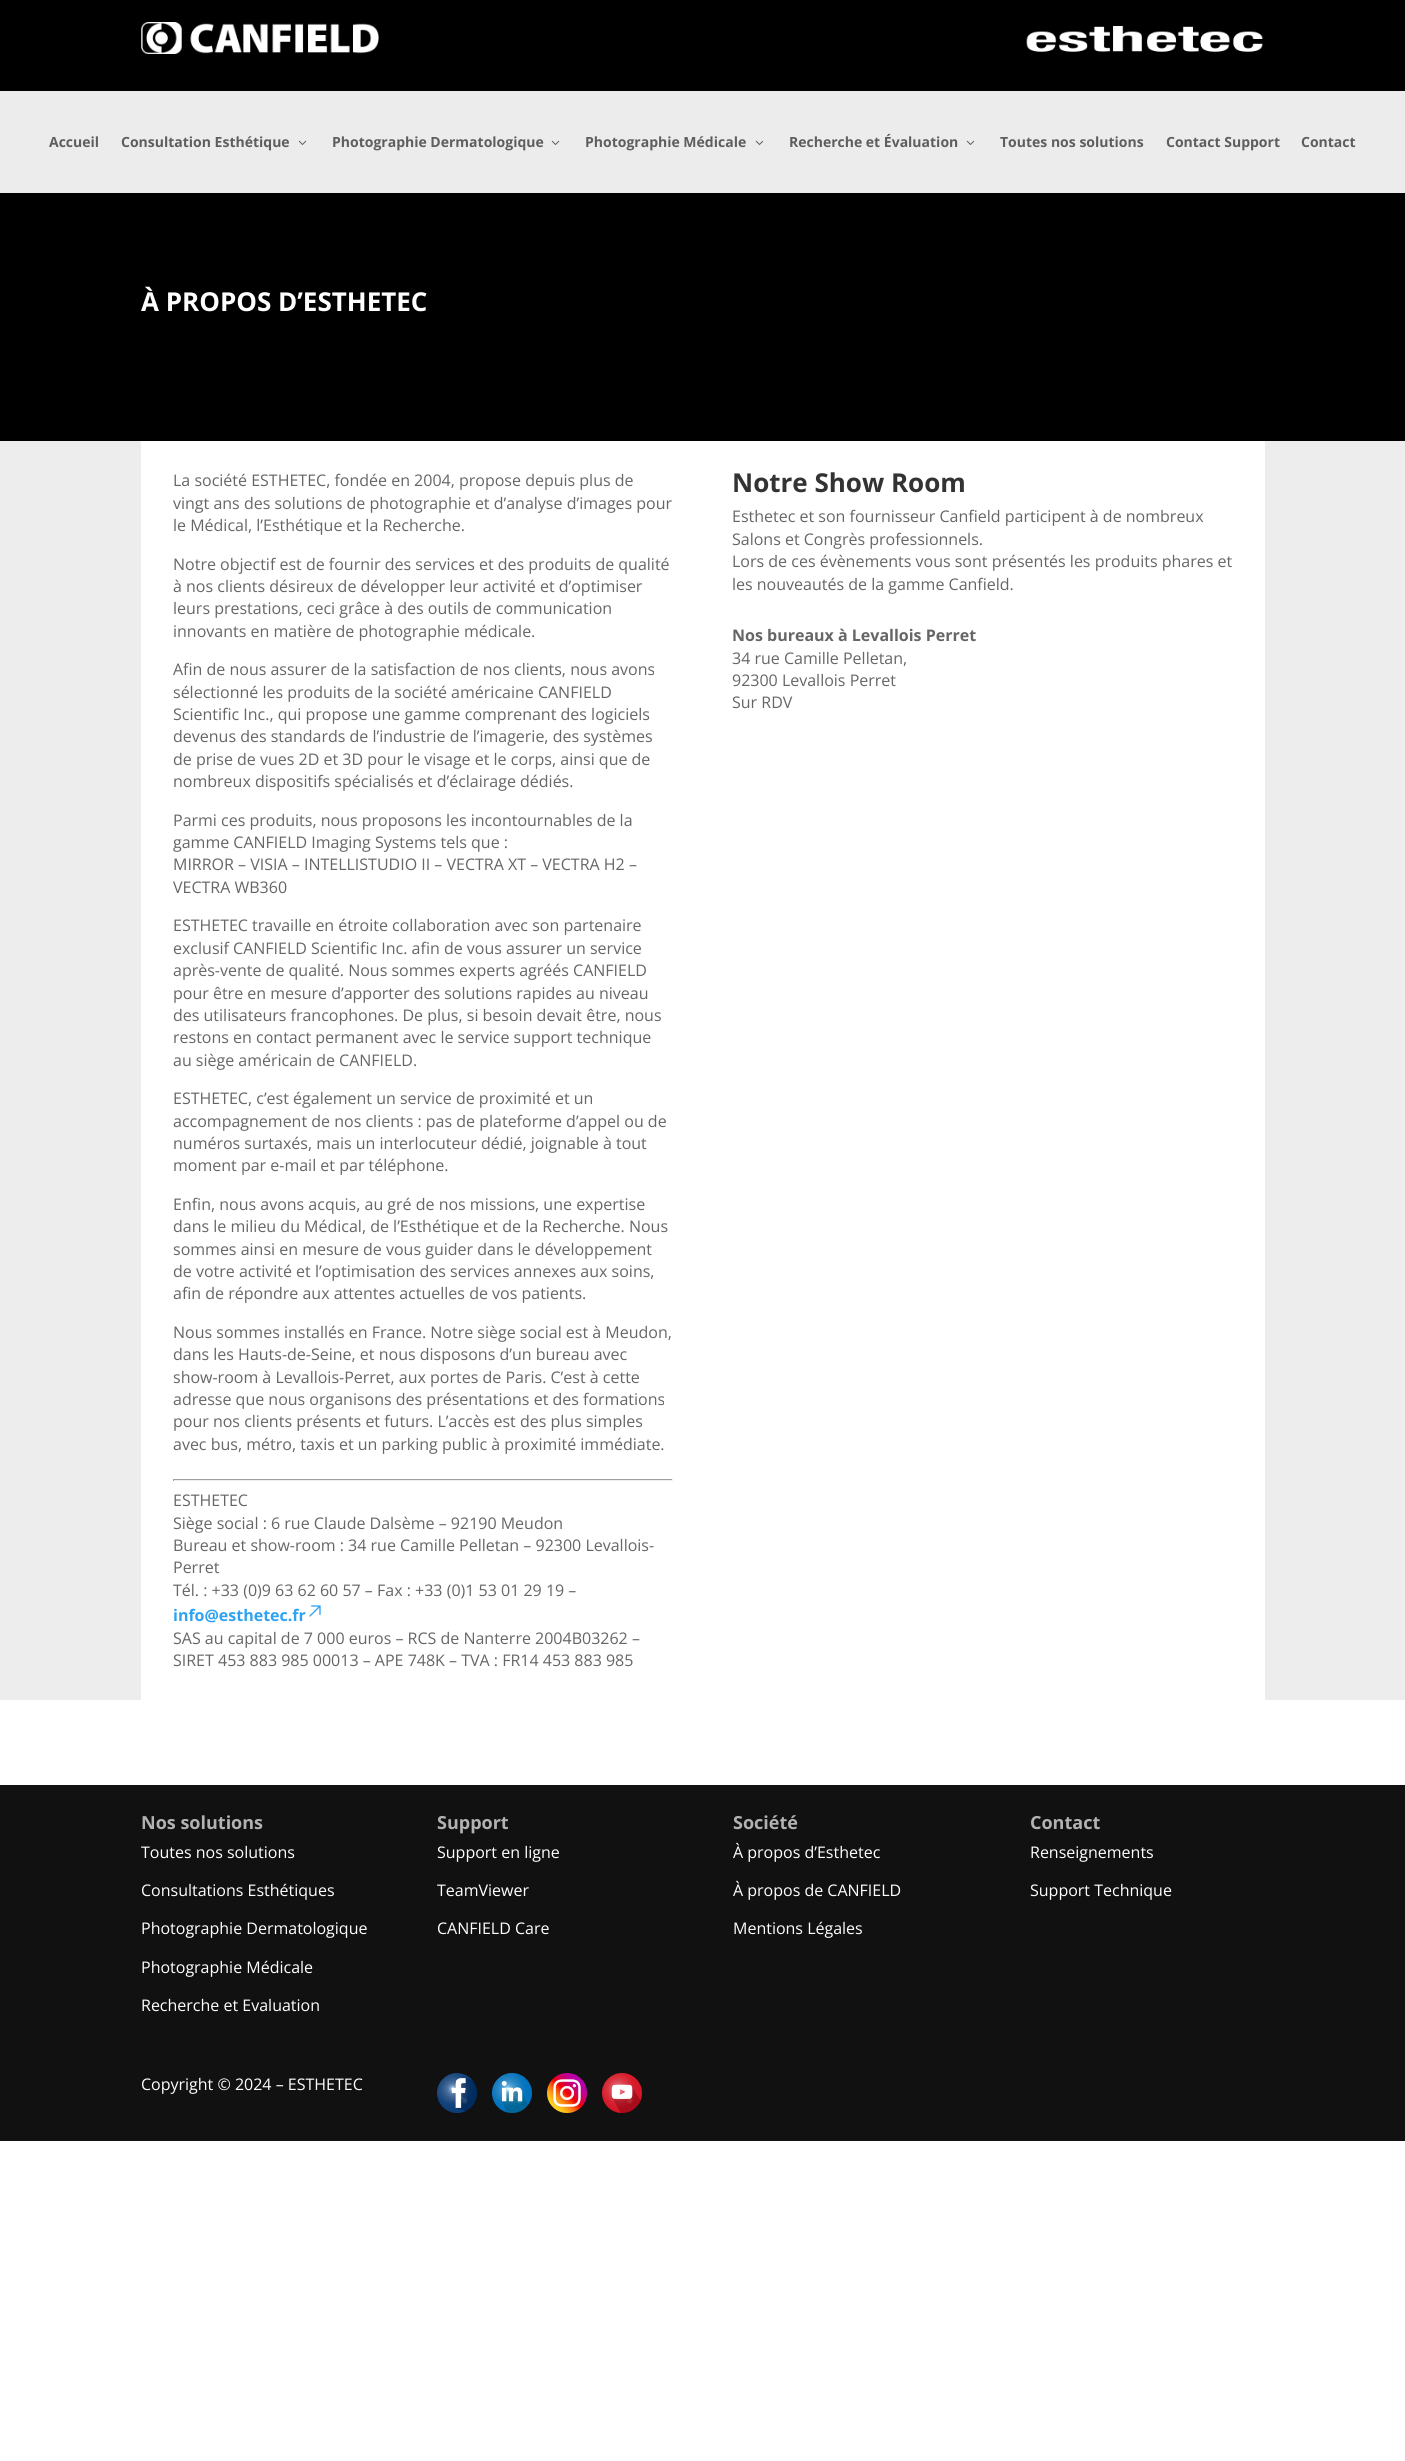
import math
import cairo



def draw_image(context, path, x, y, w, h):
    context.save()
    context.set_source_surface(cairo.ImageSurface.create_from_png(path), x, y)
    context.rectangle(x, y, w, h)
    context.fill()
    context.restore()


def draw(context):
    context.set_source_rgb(1, 1, 1)
    context.paint()
    context.set_source_rgb(0, 0, 0)
    context.rectangle(0, 0, 1405, 91)
    context.fill()
    draw_image(context, "images/1.png", 141, 22, 238, 32)
    draw_image(context, "images/2.png", 1026, 26, 237, 26)
    context.set_source_rgb(236 / 255, 236 / 255, 236 / 255)
    context.rectangle(0, 91, 1405, 102)
    context.fill()
    draw_image(context, "images/3.png", 298, 140, 9, 5)
    draw_image(context, "images/3.png", 551, 140, 9, 5)
    draw_image(context, "images/3.png", 755, 140, 9, 5)
    draw_image(context, "images/3.png", 966, 140, 9, 5)
    context.set_source_rgb(0, 0, 0)
    context.rectangle(0, 193, 1405, 248)
    context.fill()
    context.set_source_rgb(237 / 255, 237 / 255, 237 / 255)
    context.rectangle(0, 441, 1405, 1259)
    context.fill()
    context.set_source_rgb(1, 1, 1)
    context.rectangle(141, 441, 1124, 1259)
    context.fill()
    context.set_source_rgb(159 / 255, 159 / 255, 159 / 255)
    context.rectangle(173, 1479, 500, 1)
    context.fill()
    context.set_source_rgb(238 / 255, 238 / 255, 238 / 255)
    context.rectangle(672, 1479, 1, 2)
    context.fill()
    context.rectangle(173, 1480, 500, 1)
    context.fill()
    context.set_source_rgb(159 / 255, 159 / 255, 159 / 255)
    context.rectangle(173, 1479, 1, 2)
    context.fill()
    draw_image(context, "images/4.png", 309, 1605, 12, 12)
    context.set_source_rgb(17 / 255, 17 / 255, 17 / 255)
    context.rectangle(0, 1785, 1405, 356)
    context.fill()
    draw_image(context, "images/5.png", 437, 2073, 40, 40)
    draw_image(context, "images/6.png", 492, 2073, 40, 40)
    draw_image(context, "images/7.png", 547, 2073, 40, 40)
    draw_image(context, "images/8.png", 602, 2073, 40, 40)
    context.select_font_face("Open Sans", cairo.FontSlant.NORMAL, cairo.FontWeight.BOLD)
    context.set_font_size(14)
    context.set_source_rgb(94 / 255, 94 / 255, 94 / 255)
    context.move_to(49, 147)
    context.show_text("Accueil")
    context.move_to(121, 147)
    context.show_text("Consultation Esthétique")
    context.move_to(332, 147)
    context.show_text("Photographie Dermatologique")
    context.move_to(585, 147)
    context.show_text("Photographie Médicale")
    context.move_to(789, 147)
    context.show_text("Recherche et Évaluation")
    context.move_to(1000, 147)
    context.show_text("Toutes nos solutions")
    context.move_to(1166, 147)
    context.show_text("Contact Support")
    context.move_to(1301, 147)
    context.show_text("Contact")
    context.set_font_size(26)
    context.set_source_rgb(1, 1, 1)
    context.move_to(141, 311)
    context.show_text("À PROPOS D’ESTHETEC")
    context.select_font_face("Open Sans")
    context.set_font_size(16)
    context.set_source_rgb(102 / 255, 102 / 255, 102 / 255)
    context.move_to(173, 486)
    context.show_text("La société ESTHETEC, fondée en 2004, propose depuis plus de")
    context.move_to(173, 509)
    context.show_text("vingt ans des solutions de photographie et d’analyse d’images pour")
    context.move_to(173, 531)
    context.show_text("le Médical, l’Esthétique et la Recherche.")
    context.move_to(173, 570)
    context.show_text("Notre objectif est de fournir des services et des produits de qualité")
    context.move_to(173, 592)
    context.show_text("à nos clients désireux de développer leur activité et d’optimiser")
    context.move_to(173, 614)
    context.show_text("leurs prestations, ceci grâce à des outils de communication")
    context.move_to(173, 637)
    context.show_text("innovants en matière de photographie médicale.")
    context.move_to(173, 675)
    context.show_text("Afin de nous assurer de la satisfaction de nos clients, nous avons")
    context.move_to(173, 698)
    context.show_text("sélectionné les produits de la société américaine CANFIELD")
    context.move_to(173, 720)
    context.show_text("Scientific Inc., qui propose une gamme comprenant des logiciels")
    context.move_to(173, 742)
    context.show_text("devenus des standards de l’industrie de l’imagerie, des systèmes")
    context.move_to(173, 765)
    context.show_text("de prise de vues 2D et 3D pour le visage et le corps, ainsi que de")
    context.move_to(173, 787)
    context.show_text("nombreux dispositifs spécialisés et d’éclairage dédiés.")
    context.move_to(173, 826)
    context.show_text("Parmi ces produits, nous proposons les incontournables de la")
    context.move_to(173, 848)
    context.show_text("gamme CANFIELD Imaging Systems tels que :")
    context.move_to(173, 870)
    context.show_text("MIRROR – VISIA – INTELLISTUDIO II – VECTRA XT – VECTRA H2 –")
    context.move_to(173, 893)
    context.show_text("VECTRA WB360")
    context.move_to(173, 931)
    context.show_text("ESTHETEC travaille en étroite collaboration avec son partenaire")
    context.move_to(173, 954)
    context.show_text("exclusif CANFIELD Scientific Inc. afin de vous assurer un service")
    context.move_to(173, 976)
    context.show_text("après-vente de qualité. Nous sommes experts agréés CANFIELD")
    context.move_to(173, 999)
    context.show_text("pour être en mesure d’apporter des solutions rapides au niveau")
    context.move_to(173, 1021)
    context.show_text("des utilisateurs francophones. De plus, si besoin devait être, nous")
    context.move_to(173, 1043)
    context.show_text("restons en contact permanent avec le service support technique")
    context.move_to(173, 1066)
    context.show_text("au siège américain de CANFIELD.")
    context.move_to(173, 1104)
    context.show_text("ESTHETEC, c’est également un service de proximité et un")
    context.move_to(173, 1127)
    context.show_text("accompagnement de nos clients : pas de plateforme d’appel ou de")
    context.move_to(173, 1149)
    context.show_text("numéros surtaxés, mais un interlocuteur dédié, joignable à tout")
    context.move_to(173, 1171)
    context.show_text("moment par e-mail et par téléphone.")
    context.move_to(173, 1210)
    context.show_text("Enfin, nous avons acquis, au gré de nos missions, une expertise")
    context.move_to(173, 1232)
    context.show_text("dans le milieu du Médical, de l’Esthétique et de la Recherche. Nous")
    context.move_to(173, 1255)
    context.show_text("sommes ainsi en mesure de vous guider dans le développement")
    context.move_to(173, 1277)
    context.show_text("de votre activité et l’optimisation des services annexes aux soins,")
    context.move_to(173, 1299)
    context.show_text("afin de répondre aux attentes actuelles de vos patients.")
    context.move_to(173, 1338)
    context.show_text("Nous sommes installés en France. Notre siège social est à Meudon,")
    context.move_to(173, 1360)
    context.show_text("dans les Hauts-de-Seine, et nous disposons d’un bureau avec")
    context.move_to(173, 1383)
    context.show_text("show-room à Levallois-Perret, aux portes de Paris. C’est à cette")
    context.move_to(173, 1405)
    context.show_text("adresse que nous organisons des présentations et des formations")
    context.move_to(173, 1427)
    context.show_text("pour nos clients présents et futurs. L’accès est des plus simples")
    context.move_to(173, 1450)
    context.show_text("avec bus, métro, taxis et un parking public à proximité immédiate.")
    context.move_to(173, 1506)
    context.show_text("ESTHETEC")
    context.move_to(173, 1529)
    context.show_text("Siège social : 6 rue Claude Dalsème – 92190 Meudon")
    context.move_to(173, 1551)
    context.show_text("Bureau et show-room : 34 rue Camille Pelletan – 92300 Levallois-")
    context.move_to(173, 1573)
    context.show_text("Perret")
    context.move_to(173, 1596)
    context.show_text("Tél. : +33 (0)9 63 62 60 57 – Fax : +33 (0)1 53 01 29 19 –")
    context.select_font_face("Open Sans", cairo.FontSlant.NORMAL, cairo.FontWeight.BOLD)
    context.set_source_rgb(46 / 255, 163 / 255, 242 / 255)
    context.move_to(173, 1621)
    context.show_text("info@esthetec.fr")
    context.select_font_face("Open Sans")
    context.set_source_rgb(102 / 255, 102 / 255, 102 / 255)
    context.move_to(173, 1644)
    context.show_text("SAS au capital de 7 000 euros – RCS de Nanterre 2004B03262 –")
    context.move_to(173, 1666)
    context.show_text("SIRET 453 883 985 00013 – APE 748K – TVA : FR14 453 883 985")
    context.select_font_face("Open Sans", cairo.FontSlant.NORMAL, cairo.FontWeight.BOLD)
    context.set_font_size(26)
    context.set_source_rgb(51 / 255, 51 / 255, 51 / 255)
    context.move_to(732, 492)
    context.show_text("Notre Show Room")
    context.select_font_face("Open Sans")
    context.set_font_size(16)
    context.set_source_rgb(102 / 255, 102 / 255, 102 / 255)
    context.move_to(732, 522)
    context.show_text("Esthetec et son fournisseur Canfield participent à de nombreux")
    context.move_to(732, 545)
    context.show_text("Salons et Congrès professionnels.")
    context.move_to(732, 567)
    context.show_text("Lors de ces évènements vous sont présentés les produits phares et")
    context.move_to(732, 590)
    context.show_text("les nouveautés de la gamme Canfield.")
    context.select_font_face("Open Sans", cairo.FontSlant.NORMAL, cairo.FontWeight.BOLD)
    context.move_to(732, 641)
    context.show_text("Nos bureaux à Levallois Perret")
    context.select_font_face("Open Sans")
    context.move_to(732, 664)
    context.show_text("34 rue Camille Pelletan,")
    context.move_to(732, 686)
    context.show_text("92300 Levallois Perret")
    context.move_to(732, 708)
    context.show_text("Sur RDV")
    context.select_font_face("Open Sans", cairo.FontSlant.NORMAL, cairo.FontWeight.BOLD)
    context.set_font_size(18)
    context.set_source_rgb(178 / 255, 178 / 255, 178 / 255)
    context.move_to(141, 1829)
    context.show_text("Nos solutions")
    context.select_font_face("Open Sans")
    context.set_font_size(16)
    context.set_source_rgb(1, 1, 1)
    context.move_to(141, 1858)
    context.show_text("Toutes nos solutions")
    context.move_to(141, 1896)
    context.show_text("Consultations Esthétiques")
    context.move_to(141, 1934)
    context.show_text("Photographie Dermatologique")
    context.move_to(141, 1973)
    context.show_text("Photographie Médicale")
    context.move_to(141, 2011)
    context.show_text("Recherche et Evaluation")
    context.select_font_face("Open Sans", cairo.FontSlant.NORMAL, cairo.FontWeight.BOLD)
    context.set_font_size(18)
    context.set_source_rgb(178 / 255, 178 / 255, 178 / 255)
    context.move_to(437, 1829)
    context.show_text("Support")
    context.select_font_face("Open Sans")
    context.set_font_size(16)
    context.set_source_rgb(1, 1, 1)
    context.move_to(437, 1858)
    context.show_text("Support en ligne")
    context.move_to(437, 1896)
    context.show_text("TeamViewer")
    context.move_to(437, 1934)
    context.show_text("CANFIELD Care")
    context.select_font_face("Open Sans", cairo.FontSlant.NORMAL, cairo.FontWeight.BOLD)
    context.set_font_size(18)
    context.set_source_rgb(178 / 255, 178 / 255, 178 / 255)
    context.move_to(733, 1829)
    context.show_text("Société")
    context.select_font_face("Open Sans")
    context.set_font_size(16)
    context.set_source_rgb(1, 1, 1)
    context.move_to(733, 1858)
    context.show_text("À propos d’Esthetec")
    context.move_to(733, 1896)
    context.show_text("À propos de CANFIELD")
    context.move_to(733, 1934)
    context.show_text("Mentions Légales")
    context.select_font_face("Open Sans", cairo.FontSlant.NORMAL, cairo.FontWeight.BOLD)
    context.set_font_size(18)
    context.set_source_rgb(178 / 255, 178 / 255, 178 / 255)
    context.move_to(1030, 1829)
    context.show_text("Contact")
    context.select_font_face("Open Sans")
    context.set_font_size(16)
    context.set_source_rgb(1, 1, 1)
    context.move_to(1030, 1858)
    context.show_text("Renseignements")
    context.move_to(1030, 1896)
    context.show_text("Support Technique")
    context.move_to(141, 2090)
    context.show_text("Copyright © 2024 – ESTHETEC")


surface = cairo.ImageSurface(cairo.Format.RGB24, 1405, 2461)
context = cairo.Context(surface)
options = cairo.FontOptions()
options.set_hint_metrics(cairo.HintMetrics.OFF)
options.set_hint_style(cairo.HintStyle.NONE)
context.set_font_options(options)
context.set_miter_limit(4)
draw(context)
surface.write_to_png("out.png")
